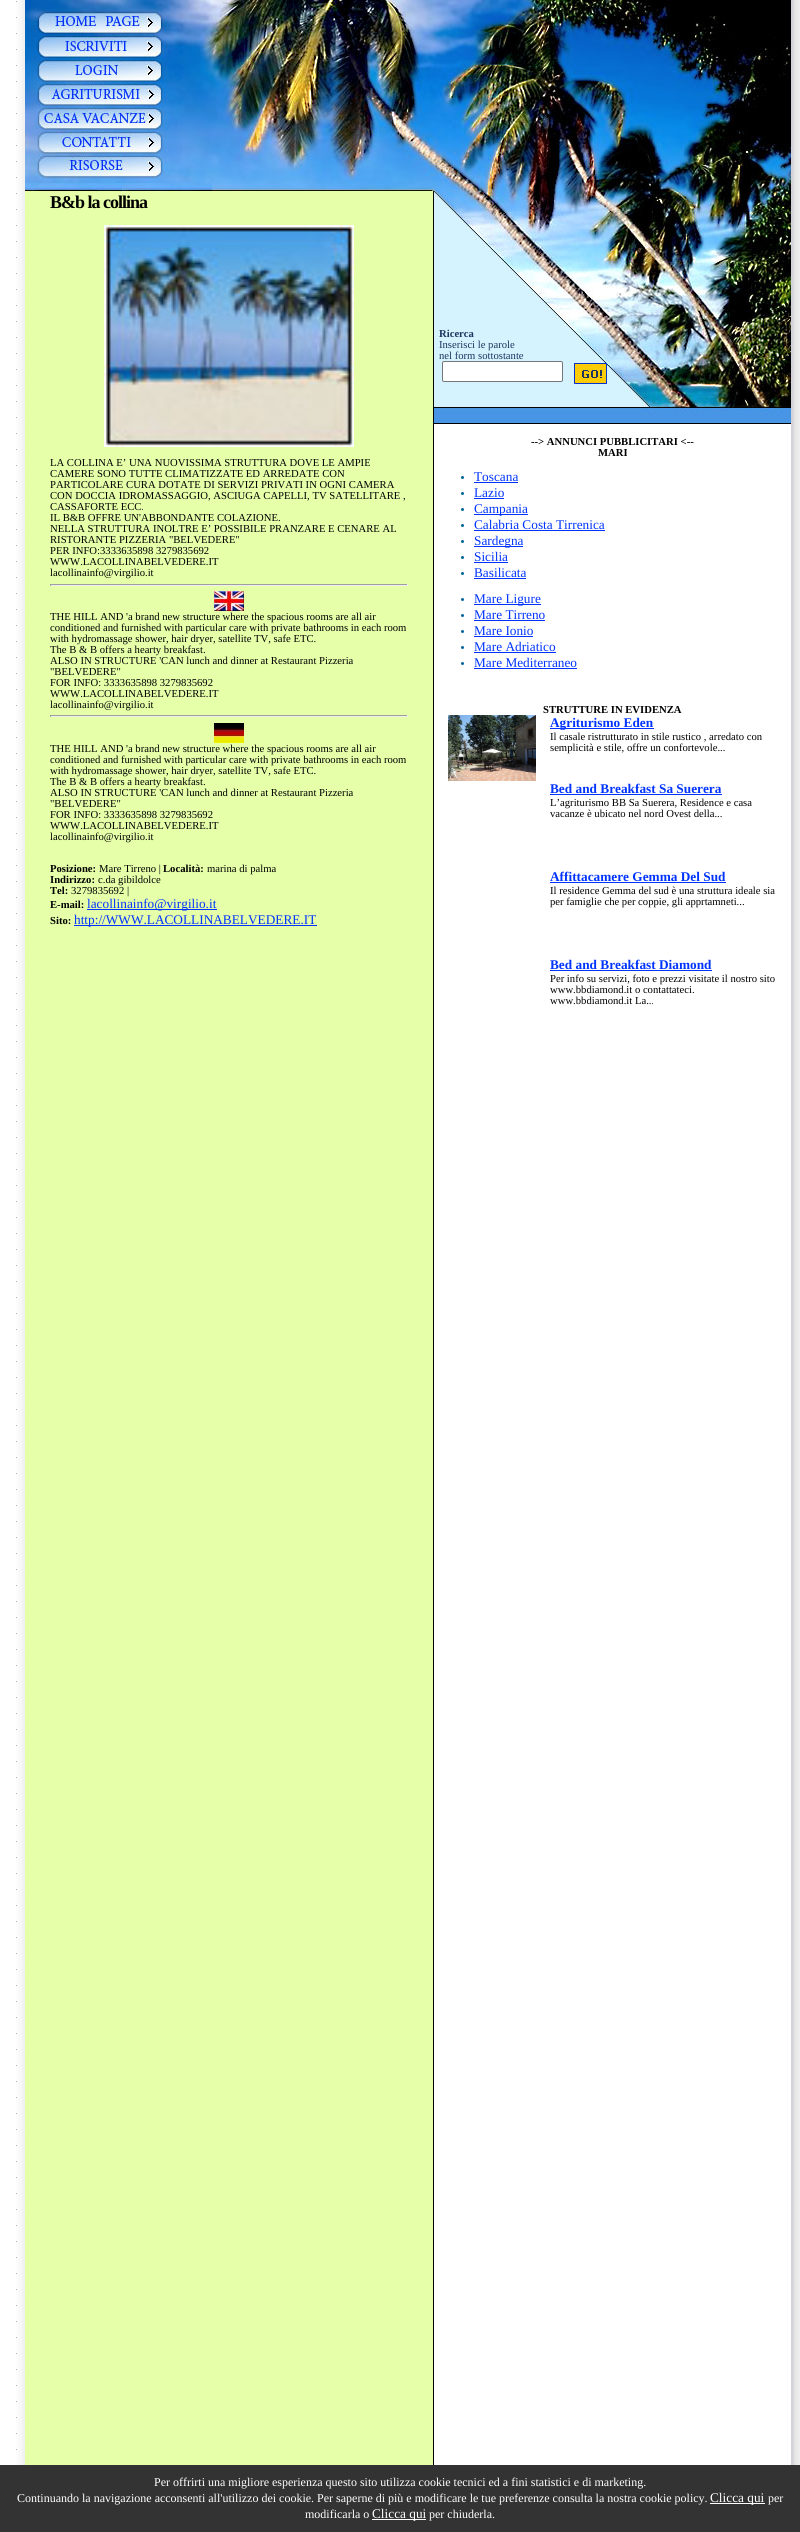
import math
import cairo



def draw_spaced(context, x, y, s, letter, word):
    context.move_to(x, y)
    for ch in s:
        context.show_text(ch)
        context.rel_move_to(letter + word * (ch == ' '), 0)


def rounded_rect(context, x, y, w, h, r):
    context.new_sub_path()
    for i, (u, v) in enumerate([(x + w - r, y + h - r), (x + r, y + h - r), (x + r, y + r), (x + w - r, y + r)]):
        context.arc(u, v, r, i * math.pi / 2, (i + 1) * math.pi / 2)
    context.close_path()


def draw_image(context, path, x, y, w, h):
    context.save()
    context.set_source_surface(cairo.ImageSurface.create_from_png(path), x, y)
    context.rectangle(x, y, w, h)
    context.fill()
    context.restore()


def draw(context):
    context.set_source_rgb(1, 1, 1)
    context.paint()
    draw_image(context, "images/1.png", 16, 0, 9, 2465)
    draw_image(context, "images/2.png", 791, 0, 9, 2465)
    draw_image(context, "images/3.png", 25, 0, 150, 34)
    draw_image(context, "images/4.png", 25, 34, 150, 25)
    draw_image(context, "images/5.png", 25, 59, 150, 24)
    draw_image(context, "images/6.png", 25, 83, 150, 24)
    draw_image(context, "images/7.png", 25, 107, 150, 24)
    draw_image(context, "images/8.png", 25, 131, 150, 24)
    draw_image(context, "images/9.png", 25, 155, 150, 37)
    draw_image(context, "images/10.png", 175, 0, 616, 192)
    context.set_source_rgb(230 / 255, 1, 169 / 255)
    context.rectangle(25, 192, 408, 2273)
    context.fill()
    context.set_source_rgb(0, 0, 0)
    context.rectangle(433, 192, 1, 2273)
    context.fill()
    draw_image(context, "images/11.png", 104, 225, 250, 222)
    context.set_source_rgb(159 / 255, 159 / 255, 159 / 255)
    context.rectangle(50, 584, 358, 1)
    context.fill()
    context.set_source_rgb(238 / 255, 238 / 255, 238 / 255)
    context.rectangle(407, 584, 1, 2)
    context.fill()
    context.rectangle(50, 585, 358, 1)
    context.fill()
    context.set_source_rgb(159 / 255, 159 / 255, 159 / 255)
    context.rectangle(50, 584, 1, 2)
    context.fill()
    draw_image(context, "images/12.png", 214, 591, 30, 20)
    context.rectangle(50, 715, 358, 1)
    context.fill()
    context.set_source_rgb(238 / 255, 238 / 255, 238 / 255)
    context.rectangle(407, 715, 1, 2)
    context.fill()
    context.rectangle(50, 716, 358, 1)
    context.fill()
    context.set_source_rgb(159 / 255, 159 / 255, 159 / 255)
    context.rectangle(50, 715, 1, 2)
    context.fill()
    draw_image(context, "images/13.png", 214, 723, 30, 20)
    context.set_source_rgb(0, 51 / 255, 1)
    context.rectangle(87, 909, 130, 1)
    context.fill()
    context.rectangle(74, 925, 243, 1)
    context.fill()
    draw_image(context, "images/14.png", 434, 192, 357, 72)
    draw_image(context, "images/15.png", 434, 264, 357, 142)
    context.set_source_rgb(1, 1, 1)
    rounded_rect(context, 442.5, 361.5, 120, 20, 1.5)
    context.fill_preserve()
    context.set_source_rgb(118 / 255, 118 / 255, 118 / 255)
    context.set_line_width(1)
    context.stroke()
    draw_image(context, "images/16.png", 574, 363, 33, 21)
    draw_image(context, "images/17.png", 434, 406, 357, 18)
    context.set_source_rgb(0, 102 / 255, 153 / 255)
    context.arc(462.5, 477.5, 1.5, 0, 2 * math.pi)
    context.fill()
    context.set_source_rgb(0, 51 / 255, 1)
    context.rectangle(474, 482, 44, 1)
    context.fill()
    context.set_source_rgb(0, 102 / 255, 153 / 255)
    context.arc(462.5, 493.5, 1.5, 0, 2 * math.pi)
    context.fill()
    context.set_source_rgb(0, 51 / 255, 1)
    context.rectangle(474, 498, 30, 1)
    context.fill()
    context.set_source_rgb(0, 102 / 255, 153 / 255)
    context.arc(462.5, 509.5, 1.5, 0, 2 * math.pi)
    context.fill()
    context.set_source_rgb(0, 51 / 255, 1)
    context.rectangle(474, 514, 54, 1)
    context.fill()
    context.set_source_rgb(0, 102 / 255, 153 / 255)
    context.arc(462.5, 525.5, 1.5, 0, 2 * math.pi)
    context.fill()
    context.set_source_rgb(0, 51 / 255, 1)
    context.rectangle(474, 530, 131, 1)
    context.fill()
    context.set_source_rgb(0, 102 / 255, 153 / 255)
    context.arc(462.5, 541.5, 1.5, 0, 2 * math.pi)
    context.fill()
    context.set_source_rgb(0, 51 / 255, 1)
    context.rectangle(474, 546, 49, 1)
    context.fill()
    context.set_source_rgb(0, 102 / 255, 153 / 255)
    context.arc(462.5, 557.5, 1.5, 0, 2 * math.pi)
    context.fill()
    context.set_source_rgb(0, 51 / 255, 1)
    context.rectangle(474, 562, 34, 1)
    context.fill()
    context.set_source_rgb(0, 102 / 255, 153 / 255)
    context.arc(462.5, 573.5, 1.5, 0, 2 * math.pi)
    context.fill()
    context.set_source_rgb(0, 51 / 255, 1)
    context.rectangle(474, 578, 52, 1)
    context.fill()
    context.set_source_rgb(0, 102 / 255, 153 / 255)
    context.arc(462.5, 599.5, 1.5, 0, 2 * math.pi)
    context.fill()
    context.set_source_rgb(0, 51 / 255, 1)
    context.rectangle(474, 604, 67, 1)
    context.fill()
    context.set_source_rgb(0, 102 / 255, 153 / 255)
    context.arc(462.5, 615.5, 1.5, 0, 2 * math.pi)
    context.fill()
    context.set_source_rgb(0, 51 / 255, 1)
    context.rectangle(474, 620, 71, 1)
    context.fill()
    context.set_source_rgb(0, 102 / 255, 153 / 255)
    context.arc(462.5, 631.5, 1.5, 0, 2 * math.pi)
    context.fill()
    context.set_source_rgb(0, 51 / 255, 1)
    context.rectangle(474, 636, 59, 1)
    context.fill()
    context.set_source_rgb(0, 102 / 255, 153 / 255)
    context.arc(462.5, 647.5, 1.5, 0, 2 * math.pi)
    context.fill()
    context.set_source_rgb(0, 51 / 255, 1)
    context.rectangle(474, 652, 82, 1)
    context.fill()
    context.set_source_rgb(0, 102 / 255, 153 / 255)
    context.arc(462.5, 663.5, 1.5, 0, 2 * math.pi)
    context.fill()
    context.set_source_rgb(0, 51 / 255, 1)
    context.rectangle(474, 668, 103, 1)
    context.fill()
    draw_image(context, "images/18.png", 448, 715, 88, 66)
    context.rectangle(550, 728, 104, 1)
    context.fill()
    context.rectangle(550, 794, 172, 1)
    context.fill()
    context.rectangle(550, 882, 176, 1)
    context.fill()
    context.rectangle(550, 970, 162, 1)
    context.fill()
    context.set_source_rgb(51 / 255, 51 / 255, 51 / 255)
    context.rectangle(0, 2465, 800, 67)
    context.fill()
    context.set_source_rgb(1, 1, 1)
    context.rectangle(710, 2503, 55, 1)
    context.fill()
    context.rectangle(372, 2519, 54, 1)
    context.fill()
    context.select_font_face("Liberation Serif", cairo.FontSlant.NORMAL, cairo.FontWeight.BOLD)
    context.set_font_size(18)
    context.set_source_rgb(0, 0, 0)
    draw_spaced(context, 50, 208, "B&b la collina", -1, 0)
    context.select_font_face("Liberation Serif")
    context.set_font_size(10.65)
    context.move_to(50, 466)
    context.show_text("LA COLLINA E’ UNA NUOVISSIMA STRUTTURA DOVE LE AMPIE")
    context.move_to(50, 477)
    context.show_text("CAMERE SONO TUTTE CLIMATIZZATE ED ARREDATE CON")
    context.move_to(50, 488)
    context.show_text("PARTICOLARE CURA DOTATE DI SERVIZI PRIVATI IN OGNI CAMERA")
    context.move_to(50, 499)
    context.show_text("CON DOCCIA IDROMASSAGGIO, ASCIUGA CAPELLI, TV SATELLITARE ,")
    context.move_to(50, 510)
    context.show_text("CASSAFORTE ECC.")
    context.move_to(50, 521)
    context.show_text("IL B&B OFFRE UN'ABBONDANTE COLAZIONE.")
    context.move_to(50, 532)
    context.show_text("NELLA STRUTTURA INOLTRE E’ POSSIBILE PRANZARE E CENARE AL")
    context.move_to(50, 543)
    context.show_text("RISTORANTE PIZZERIA \"BELVEDERE\"")
    context.move_to(50, 554)
    context.show_text("PER INFO:3333635898 3279835692")
    context.move_to(50, 565)
    context.show_text("WWW.LACOLLINABELVEDERE.IT")
    context.move_to(50, 576)
    context.show_text("lacollinainfo@virgilio.it")
    context.move_to(50, 620)
    context.show_text("THE HILL AND 'a brand new structure where the spacious rooms are all air")
    context.move_to(50, 631)
    context.show_text("conditioned and furnished with particular care with private bathrooms in each room")
    context.move_to(50, 642)
    context.show_text("with hydromassage shower, hair dryer, satellite TV, safe ETC.")
    context.move_to(50, 653)
    context.show_text("The B & B offers a hearty breakfast.")
    context.move_to(50, 664)
    context.show_text("ALSO IN STRUCTURE 'CAN lunch and dinner at Restaurant Pizzeria")
    context.move_to(50, 675)
    context.show_text("\"BELVEDERE\"")
    context.move_to(50, 686)
    context.show_text("FOR INFO: 3333635898 3279835692")
    context.move_to(50, 697)
    context.show_text("WWW.LACOLLINABELVEDERE.IT")
    context.move_to(50, 708)
    context.show_text("lacollinainfo@virgilio.it")
    context.move_to(50, 752)
    context.show_text("THE HILL AND 'a brand new structure where the spacious rooms are all air")
    context.move_to(50, 763)
    context.show_text("conditioned and furnished with particular care with private bathrooms in each room")
    context.move_to(50, 774)
    context.show_text("with hydromassage shower, hair dryer, satellite TV, safe ETC.")
    context.move_to(50, 785)
    context.show_text("The B & B offers a hearty breakfast.")
    context.move_to(50, 796)
    context.show_text("ALSO IN STRUCTURE 'CAN lunch and dinner at Restaurant Pizzeria")
    context.move_to(50, 807)
    context.show_text("\"BELVEDERE\"")
    context.move_to(50, 818)
    context.show_text("FOR INFO: 3333635898 3279835692")
    context.move_to(50, 829)
    context.show_text("WWW.LACOLLINABELVEDERE.IT")
    context.move_to(50, 840)
    context.show_text("lacollinainfo@virgilio.it")
    context.select_font_face("Liberation Serif", cairo.FontSlant.NORMAL, cairo.FontWeight.BOLD)
    context.move_to(50, 872)
    context.show_text("Posizione:")
    context.select_font_face("Liberation Serif")
    context.move_to(99, 872)
    context.show_text("Mare Tirreno |")
    context.select_font_face("Liberation Serif", cairo.FontSlant.NORMAL, cairo.FontWeight.BOLD)
    context.move_to(163, 872)
    context.show_text("Località:")
    context.select_font_face("Liberation Serif")
    context.move_to(207, 872)
    context.show_text("marina di palma")
    context.select_font_face("Liberation Serif", cairo.FontSlant.NORMAL, cairo.FontWeight.BOLD)
    context.move_to(50, 883)
    context.show_text("Indirizzo:")
    context.select_font_face("Liberation Serif")
    context.move_to(98, 883)
    context.show_text("c.da gibildolce")
    context.select_font_face("Liberation Serif", cairo.FontSlant.NORMAL, cairo.FontWeight.BOLD)
    context.move_to(50, 894)
    context.show_text("Tel:")
    context.select_font_face("Liberation Serif")
    context.move_to(71, 894)
    context.show_text("3279835692 |")
    context.select_font_face("Liberation Serif", cairo.FontSlant.NORMAL, cairo.FontWeight.BOLD)
    context.move_to(50, 908)
    context.show_text("E-mail:")
    context.select_font_face("Liberation Serif")
    context.set_font_size(13.3)
    context.set_source_rgb(0, 51 / 255, 1)
    context.move_to(87, 908)
    context.show_text("lacollinainfo@virgilio.it")
    context.select_font_face("Liberation Serif", cairo.FontSlant.NORMAL, cairo.FontWeight.BOLD)
    context.set_font_size(10.65)
    context.set_source_rgb(0, 0, 0)
    context.move_to(50, 924)
    context.show_text("Sito:")
    context.select_font_face("Liberation Serif")
    context.set_font_size(13.3)
    context.set_source_rgb(0, 51 / 255, 1)
    context.move_to(74, 924)
    context.show_text("http://WWW.LACOLLINABELVEDERE.IT")
    context.select_font_face("Liberation Serif", cairo.FontSlant.NORMAL, cairo.FontWeight.BOLD)
    context.set_font_size(10.65)
    context.set_source_rgb(26 / 255, 53 / 255, 95 / 255)
    context.move_to(439, 337)
    context.show_text("Ricerca")
    context.select_font_face("Liberation Serif")
    context.move_to(439, 348)
    context.show_text("Inserisci le parole")
    context.move_to(439, 359)
    context.show_text("nel form sottostante")
    context.select_font_face("Liberation Serif", cairo.FontSlant.NORMAL, cairo.FontWeight.BOLD)
    context.set_source_rgb(0, 0, 0)
    context.move_to(531, 445)
    context.show_text("--> ANNUNCI PUBBLICITARI <--")
    context.move_to(598, 456)
    context.show_text("MARI")
    context.select_font_face("Liberation Serif")
    context.set_font_size(13.3)
    context.set_source_rgb(0, 51 / 255, 1)
    context.move_to(474, 481)
    context.show_text("Toscana")
    context.move_to(474, 497)
    context.show_text("Lazio")
    context.move_to(474, 513)
    context.show_text("Campania")
    context.move_to(474, 529)
    context.show_text("Calabria Costa Tirrenica")
    context.move_to(474, 545)
    context.show_text("Sardegna")
    context.move_to(474, 561)
    context.show_text("Sicilia")
    context.move_to(474, 577)
    context.show_text("Basilicata")
    context.move_to(474, 603)
    context.show_text("Mare Ligure")
    context.move_to(474, 619)
    context.show_text("Mare Tirreno")
    context.move_to(474, 635)
    context.show_text("Mare Ionio")
    context.move_to(474, 651)
    context.show_text("Mare Adriatico")
    context.move_to(474, 667)
    context.show_text("Mare Mediterraneo")
    context.select_font_face("Liberation Serif", cairo.FontSlant.NORMAL, cairo.FontWeight.BOLD)
    context.set_font_size(10.65)
    context.set_source_rgb(0, 0, 0)
    context.move_to(543, 713)
    context.show_text("STRUTTURE IN EVIDENZA")
    context.set_font_size(13.3)
    context.set_source_rgb(0, 51 / 255, 1)
    context.move_to(550, 727)
    context.show_text("Agriturismo Eden")
    context.select_font_face("Liberation Serif")
    context.set_font_size(10.65)
    context.set_source_rgb(0, 0, 0)
    context.move_to(550, 740)
    context.show_text("Il casale ristrutturato in stile rustico , arredato con")
    context.move_to(550, 751)
    context.show_text("semplicità e stile, offre un confortevole...")
    context.select_font_face("Liberation Serif", cairo.FontSlant.NORMAL, cairo.FontWeight.BOLD)
    context.set_font_size(13.3)
    context.set_source_rgb(0, 51 / 255, 1)
    context.move_to(550, 793)
    context.show_text("Bed and Breakfast Sa Suerera")
    context.select_font_face("Liberation Serif")
    context.set_font_size(10.65)
    context.set_source_rgb(0, 0, 0)
    context.move_to(550, 806)
    context.show_text("L’agriturismo BB Sa Suerera, Residence e casa")
    context.move_to(550, 817)
    context.show_text("vacanze è ubicato nel nord Ovest della...")
    context.select_font_face("Liberation Serif", cairo.FontSlant.NORMAL, cairo.FontWeight.BOLD)
    context.set_font_size(13.3)
    context.set_source_rgb(0, 51 / 255, 1)
    context.move_to(550, 881)
    context.show_text("Affittacamere Gemma Del Sud")
    context.select_font_face("Liberation Serif")
    context.set_font_size(10.65)
    context.set_source_rgb(0, 0, 0)
    context.move_to(550, 894)
    context.show_text("Il residence Gemma del sud è una struttura ideale sia")
    context.move_to(550, 905)
    context.show_text("per famiglie che per coppie, gli apprtamneti...")
    context.select_font_face("Liberation Serif", cairo.FontSlant.NORMAL, cairo.FontWeight.BOLD)
    context.set_font_size(13.3)
    context.set_source_rgb(0, 51 / 255, 1)
    context.move_to(550, 969)
    context.show_text("Bed and Breakfast Diamond")
    context.select_font_face("Liberation Serif")
    context.set_font_size(10.65)
    context.set_source_rgb(0, 0, 0)
    context.move_to(550, 982)
    context.show_text("Per info su servizi, foto e prezzi visitate il nostro sito")
    context.move_to(550, 993)
    context.show_text("www.bbdiamond.it o contattateci.")
    context.move_to(550, 1004)
    context.show_text("www.bbdiamond.it La...")
    context.set_font_size(12)
    context.set_source_rgb(1, 1, 1)
    context.move_to(154, 2486)
    context.show_text("Per offrirti una migliore esperienza questo sito utilizza cookie tecnici ed a fini statistici e di marketing.")
    context.move_to(17, 2502)
    context.show_text("Continuando la navigazione acconsenti all'utilizzo dei cookie. Per saperne di più e modificare le tue preferenze consulta la nostra cookie policy.")
    context.set_font_size(13.3)
    context.move_to(710, 2502)
    context.show_text("Clicca qui")
    context.set_font_size(12)
    context.move_to(768, 2502)
    context.show_text("per")
    context.move_to(305, 2518)
    context.show_text("modificarla o")
    context.set_font_size(13.3)
    context.move_to(372, 2518)
    context.show_text("Clicca qui")
    context.set_font_size(12)
    context.move_to(429, 2518)
    context.show_text("per chiuderla.")


surface = cairo.ImageSurface(cairo.Format.RGB24, 800, 2532)
context = cairo.Context(surface)
options = cairo.FontOptions()
options.set_hint_metrics(cairo.HintMetrics.OFF)
options.set_hint_style(cairo.HintStyle.NONE)
context.set_font_options(options)
context.set_miter_limit(4)
draw(context)
surface.write_to_png("out.png")
